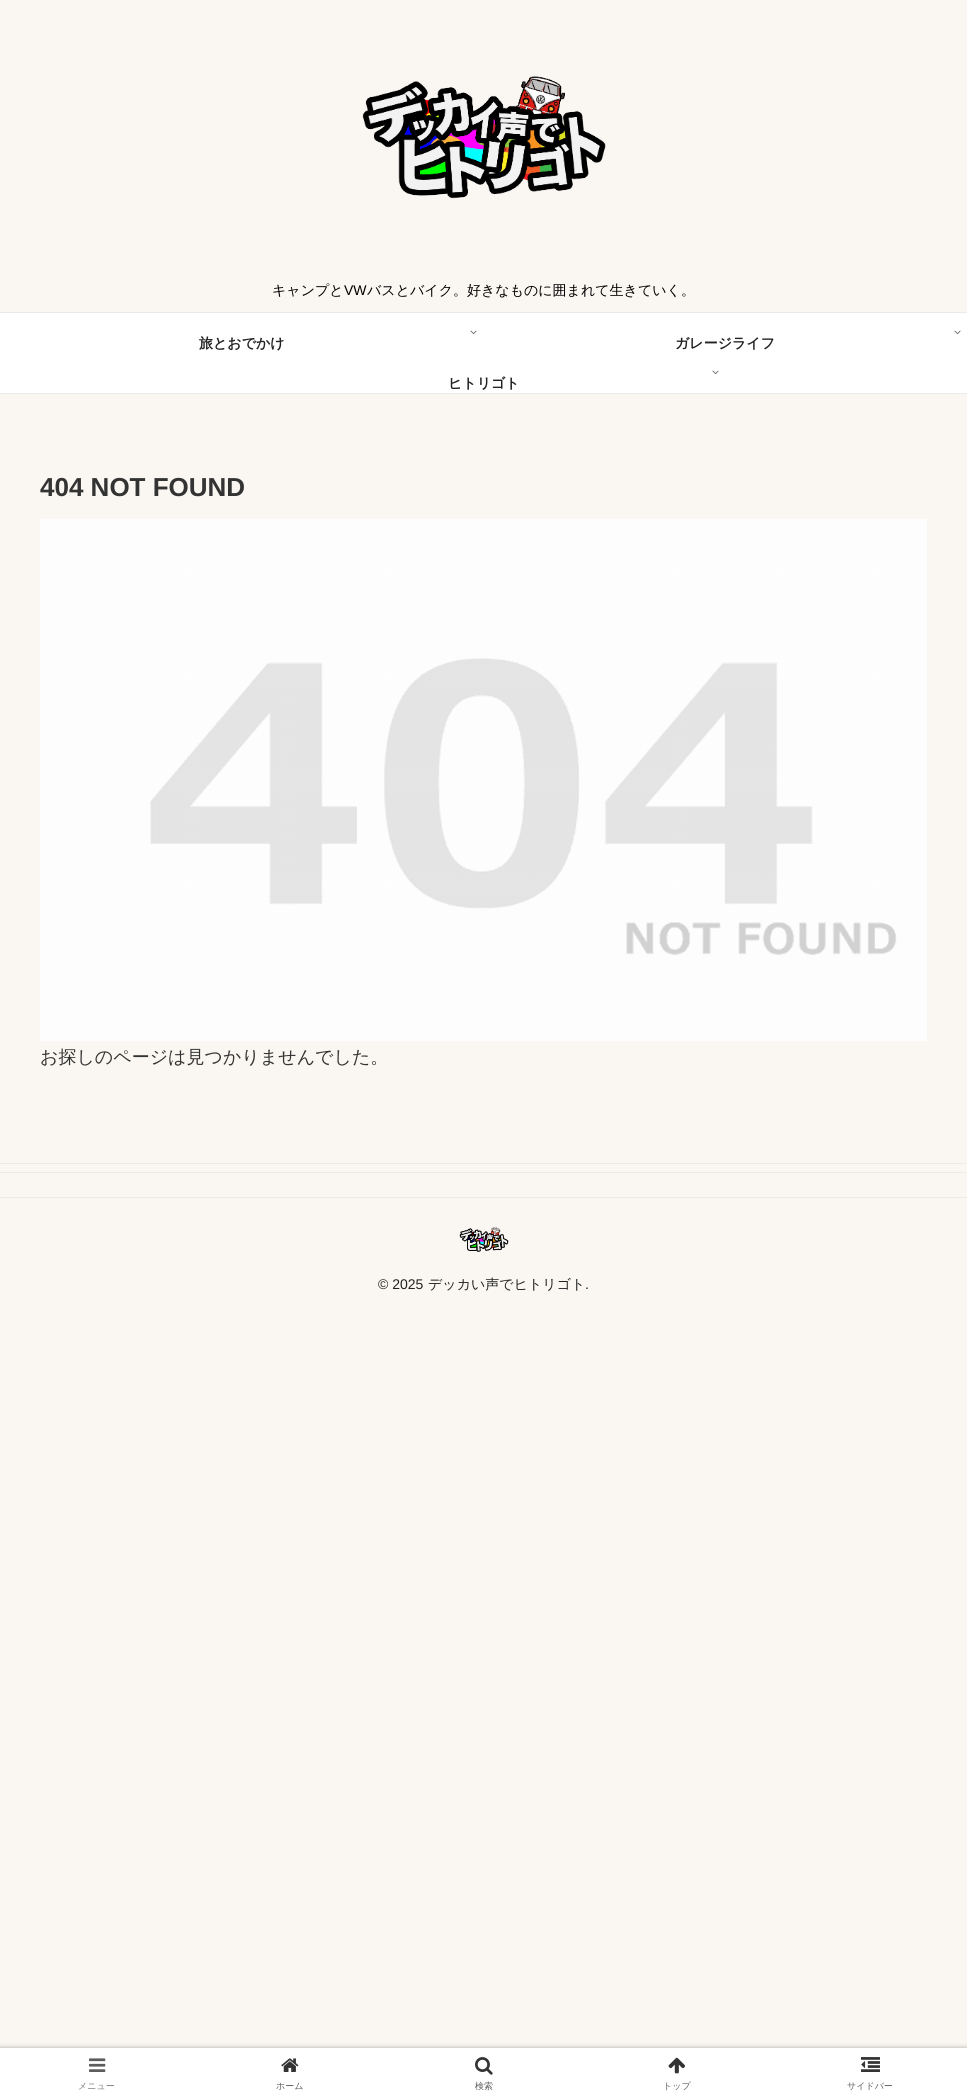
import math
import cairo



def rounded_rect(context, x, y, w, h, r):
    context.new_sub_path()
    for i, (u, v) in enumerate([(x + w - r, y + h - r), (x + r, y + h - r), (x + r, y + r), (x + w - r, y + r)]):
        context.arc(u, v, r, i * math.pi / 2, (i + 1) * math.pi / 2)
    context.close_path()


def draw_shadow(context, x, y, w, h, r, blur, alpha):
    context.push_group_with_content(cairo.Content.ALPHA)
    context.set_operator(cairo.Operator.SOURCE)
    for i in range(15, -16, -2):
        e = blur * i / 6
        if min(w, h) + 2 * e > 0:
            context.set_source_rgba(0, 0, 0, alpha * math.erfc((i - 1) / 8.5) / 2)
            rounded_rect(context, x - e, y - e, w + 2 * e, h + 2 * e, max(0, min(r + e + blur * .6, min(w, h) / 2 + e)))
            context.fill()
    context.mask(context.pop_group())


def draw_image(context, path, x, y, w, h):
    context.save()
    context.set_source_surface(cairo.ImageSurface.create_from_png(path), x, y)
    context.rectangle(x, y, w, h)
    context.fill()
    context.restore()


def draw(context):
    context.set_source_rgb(250 / 255, 247 / 255, 242 / 255)
    context.paint()
    draw_image(context, "images/1.png", 362, 76, 244, 123)
    context.set_source_rgb(1, 1, 1)
    context.rectangle(0, 313, 967, 80)
    context.fill()
    context.set_source_rgb(234 / 255, 234 / 255, 234 / 255)
    context.rectangle(0, 312, 967, 1)
    context.fill()
    context.rectangle(0, 393, 967, 1)
    context.fill()
    draw_image(context, "images/2.png", 470, 330, 7, 5)
    draw_image(context, "images/2.png", 954, 330, 7, 5)
    draw_image(context, "images/2.png", 712, 370, 7, 5)
    draw_image(context, "images/3.png", 40, 519, 887, 522)
    context.rectangle(0, 1163, 967, 1)
    context.fill()
    context.rectangle(0, 1172, 967, 1)
    context.fill()
    context.rectangle(0, 1197, 967, 1)
    context.fill()
    draw_image(context, "images/4.png", 459, 1227, 50, 25)
    context.set_source_rgb(169 / 255, 169 / 255, 169 / 255)
    draw_shadow(context, 0, 2048, 967, 50, 0, 2.5, 1)
    context.set_source_rgb(1, 1, 1)
    context.rectangle(0, 2048, 967, 50)
    context.fill()
    draw_image(context, "images/5.png", 89, 2058, 17, 14)
    draw_image(context, "images/6.png", 281, 2058, 18, 14)
    draw_image(context, "images/7.png", 475, 2057, 18, 18)
    draw_image(context, "images/8.png", 668, 2057, 17, 17)
    draw_image(context, "images/9.png", 861, 2057, 19, 15)
    context.select_font_face("WenQuanYi Zen Hei Medium")
    context.set_font_size(14)
    context.set_source_rgb(0, 0, 0)
    context.move_to(272, 295)
    context.show_text("キャンプと")
    context.select_font_face("Liberation Sans")
    context.move_to(344, 295)
    context.show_text("VW")
    context.select_font_face("WenQuanYi Zen Hei Medium")
    context.move_to(367, 295)
    context.show_text("バスとバイク。好きなものに囲まれて生きていく。")
    context.select_font_face("WenQuanYi Zen Hei", cairo.FontSlant.NORMAL, cairo.FontWeight.BOLD)
    context.set_source_rgb(34 / 255, 34 / 255, 34 / 255)
    context.move_to(199, 348)
    context.show_text("旅とおでかけ")
    context.move_to(675, 348)
    context.show_text("ガレージライフ")
    context.move_to(448, 388)
    context.show_text("ヒトリゴト")
    context.select_font_face("Liberation Sans", cairo.FontSlant.NORMAL, cairo.FontWeight.BOLD)
    context.set_font_size(26)
    context.set_source_rgb(51 / 255, 51 / 255, 51 / 255)
    context.move_to(40, 496)
    context.show_text("404 NOT FOUND")
    context.select_font_face("WenQuanYi Zen Hei Medium")
    context.set_font_size(18)
    context.move_to(40, 1063)
    context.show_text("お探しのページは見つかりませんでした。")
    context.select_font_face("Liberation Sans")
    context.set_font_size(14)
    context.set_source_rgb(34 / 255, 34 / 255, 34 / 255)
    context.move_to(378, 1289)
    context.show_text("© 2025")
    context.select_font_face("WenQuanYi Zen Hei Medium")
    context.move_to(428, 1289)
    context.show_text("デッカい声でヒトリゴト")
    context.select_font_face("Liberation Sans")
    context.move_to(585, 1289)
    context.show_text(".")
    context.select_font_face("WenQuanYi Zen Hei Medium")
    context.set_font_size(9)
    context.set_source_rgb(124 / 255, 124 / 255, 124 / 255)
    context.move_to(78, 2089)
    context.show_text("メニュー")
    context.set_source_rgb(92 / 255, 92 / 255, 92 / 255)
    context.move_to(276, 2089)
    context.show_text("ホーム")
    context.move_to(475, 2089)
    context.show_text("検索")
    context.move_to(663, 2089)
    context.show_text("トップ")
    context.move_to(847, 2089)
    context.show_text("サイドバー")


surface = cairo.ImageSurface(cairo.Format.RGB24, 967, 2098)
context = cairo.Context(surface)
options = cairo.FontOptions()
options.set_hint_metrics(cairo.HintMetrics.OFF)
options.set_hint_style(cairo.HintStyle.NONE)
context.set_font_options(options)
context.set_miter_limit(4)
draw(context)
surface.write_to_png("out.png")
